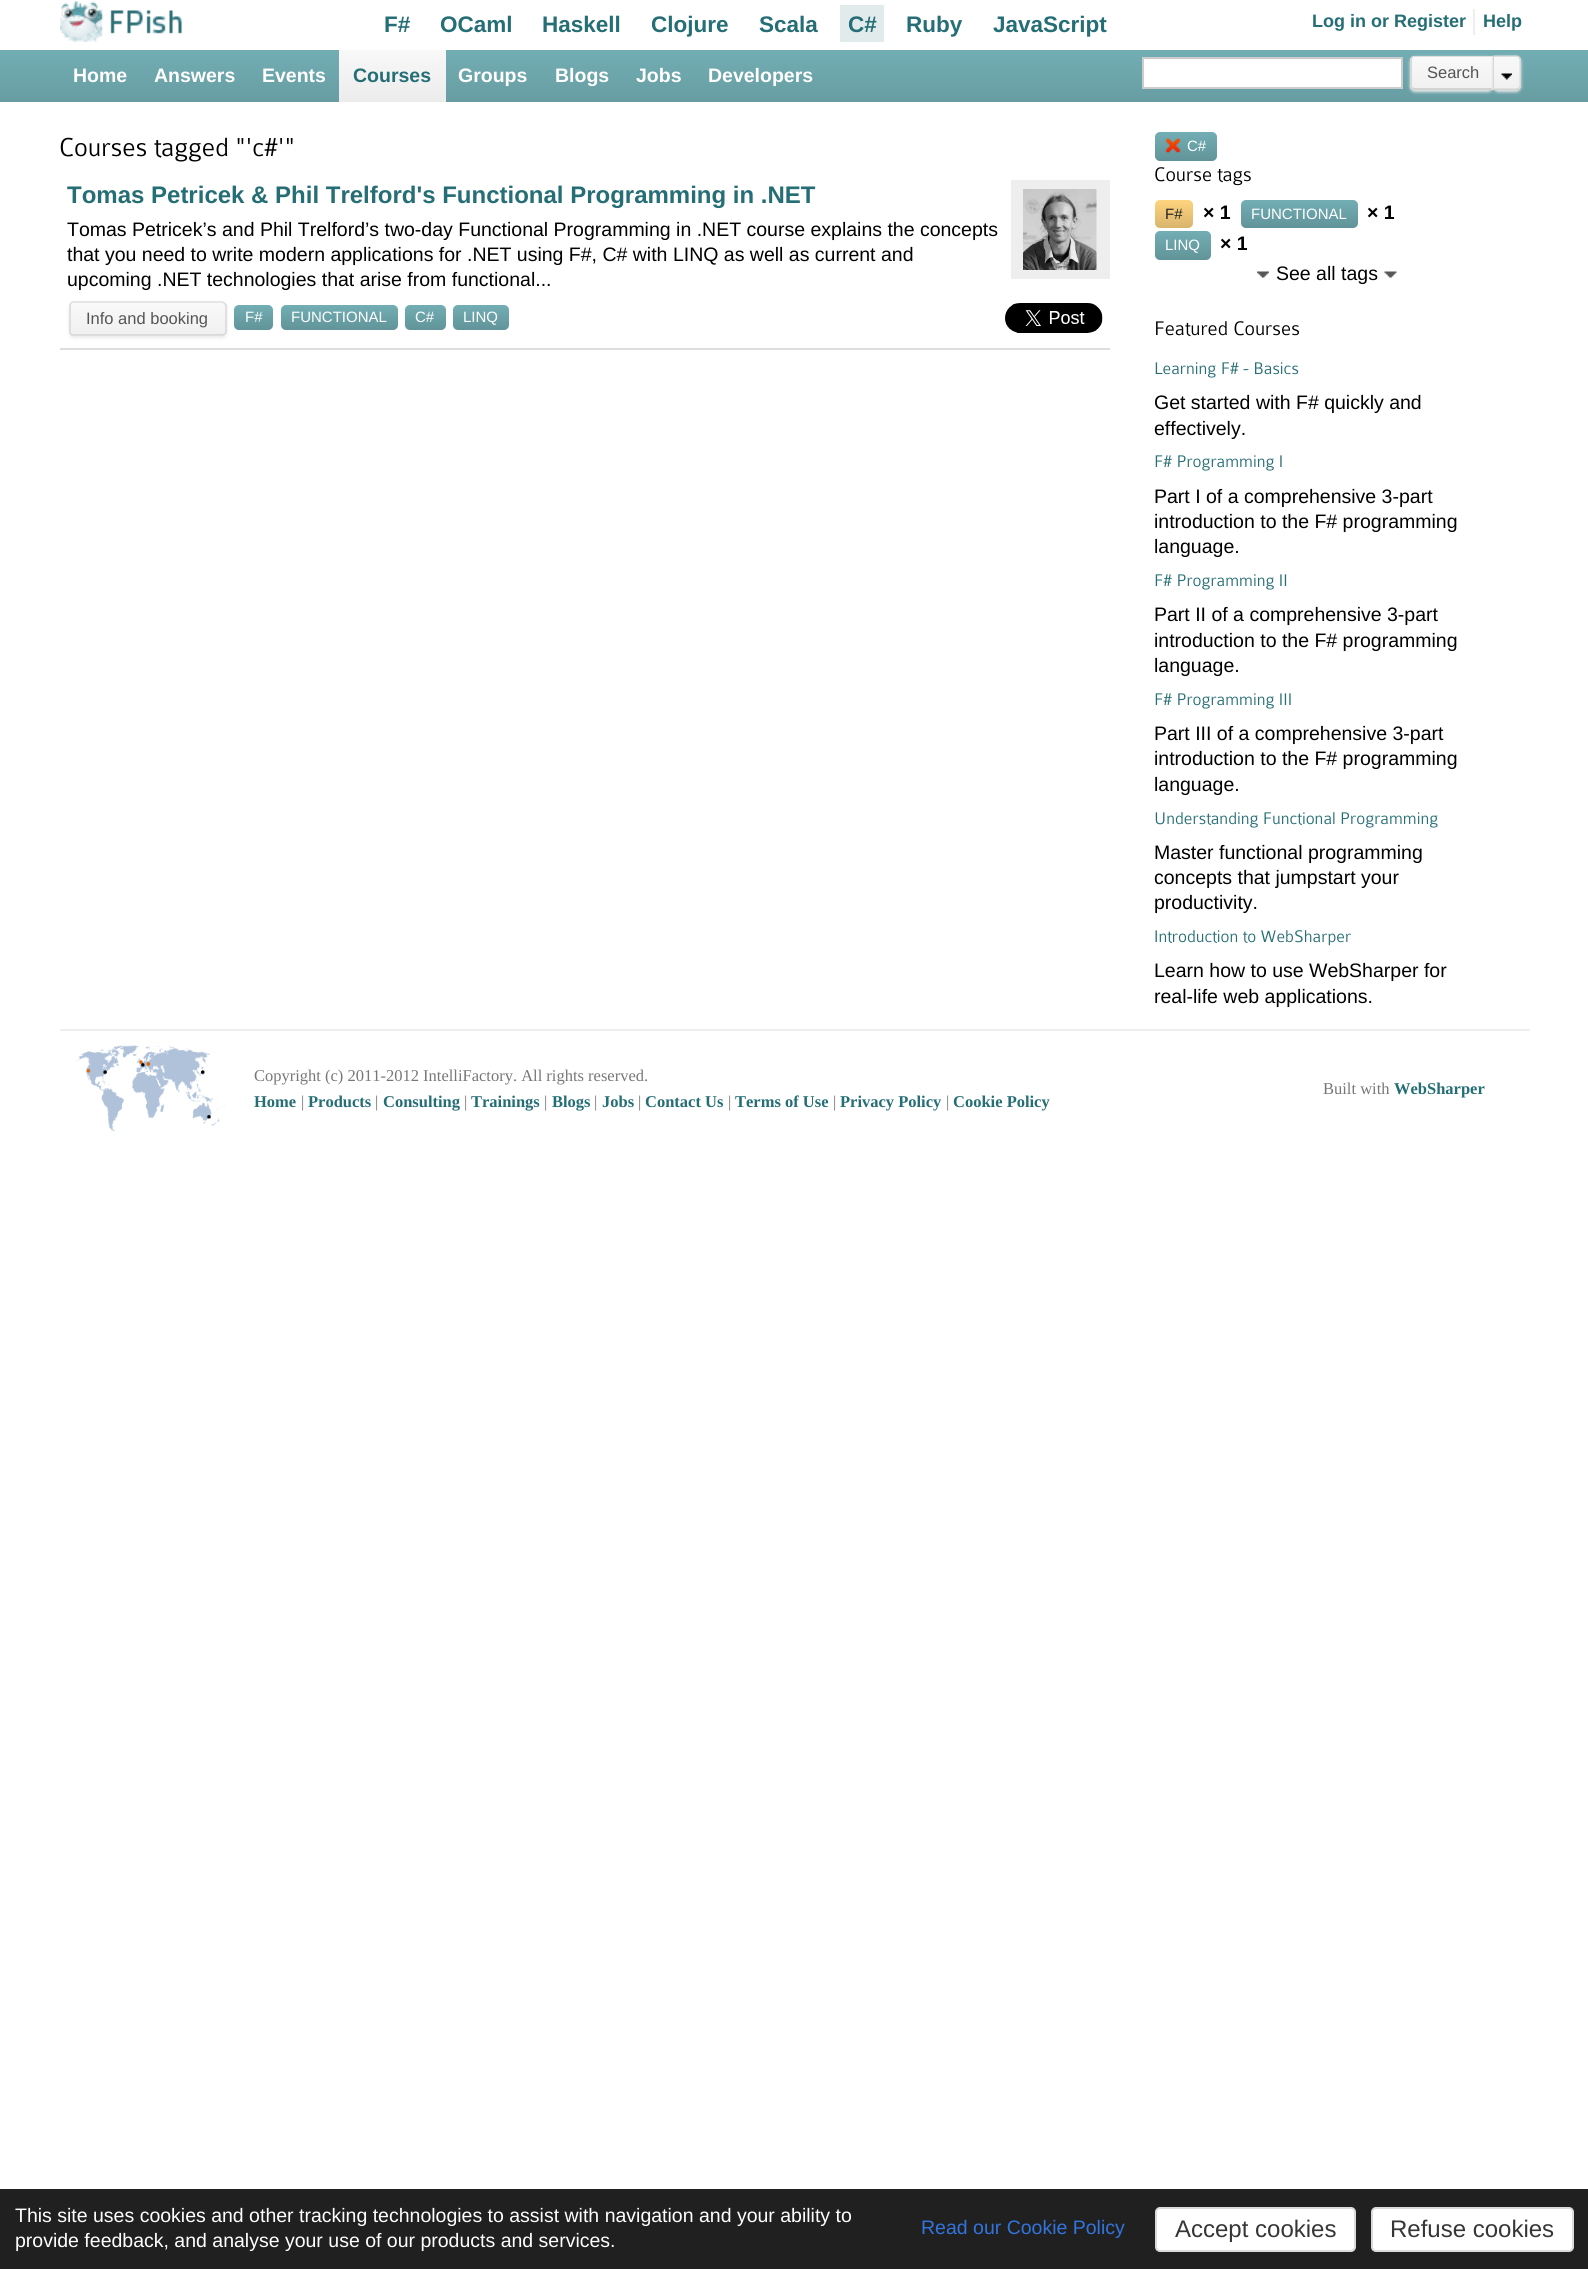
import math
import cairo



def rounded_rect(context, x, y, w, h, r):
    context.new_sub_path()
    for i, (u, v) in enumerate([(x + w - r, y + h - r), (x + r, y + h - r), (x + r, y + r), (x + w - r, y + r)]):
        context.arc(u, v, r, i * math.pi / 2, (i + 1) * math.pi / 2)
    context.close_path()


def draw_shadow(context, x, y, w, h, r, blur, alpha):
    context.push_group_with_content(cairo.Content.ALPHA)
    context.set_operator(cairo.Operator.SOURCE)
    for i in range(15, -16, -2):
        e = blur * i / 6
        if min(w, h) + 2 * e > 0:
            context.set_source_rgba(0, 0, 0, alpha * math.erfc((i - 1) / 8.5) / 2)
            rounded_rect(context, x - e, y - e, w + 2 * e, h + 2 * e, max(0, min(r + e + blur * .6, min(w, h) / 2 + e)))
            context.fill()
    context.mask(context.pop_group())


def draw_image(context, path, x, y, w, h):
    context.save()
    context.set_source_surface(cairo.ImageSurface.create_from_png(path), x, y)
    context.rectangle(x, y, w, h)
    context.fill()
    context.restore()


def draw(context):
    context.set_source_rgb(1, 1, 1)
    context.paint()
    draw_image(context, "images/1.png", 60, 1, 123, 41)
    context.set_source_rgb(226 / 255, 235 / 255, 236 / 255)
    context.rectangle(840, 5, 44, 37)
    context.fill()
    context.set_source_rgb(238 / 255, 238 / 255, 238 / 255)
    context.rectangle(1473, 9, 2, 26)
    context.fill()
    gradient = cairo.LinearGradient(794, 49, 794, 102)
    gradient.add_color_stop_rgba(0, 114 / 255, 174 / 255, 180 / 255, 1)
    gradient.add_color_stop_rgba(1, 103 / 255, 157 / 255, 162 / 255, 1)
    context.set_source(gradient)
    context.rectangle(0, 50, 1588, 52)
    context.fill()
    gradient = cairo.LinearGradient(392, 50, 392, 102)
    gradient.add_color_stop_rgba(0, 248 / 255, 248 / 255, 248 / 255, 1)
    gradient.add_color_stop_rgba(1, 236 / 255, 236 / 255, 236 / 255, 1)
    context.set_source(gradient)
    context.rectangle(339, 50, 107, 52)
    context.fill()
    context.set_source_rgb(1, 1, 1)
    context.rectangle(1143, 58, 259, 30)
    context.fill_preserve()
    context.set_source_rgb(204 / 255, 204 / 255, 204 / 255)
    context.stroke()
    context.set_source_rgb(234 / 255, 234 / 255, 234 / 255)
    draw_shadow(context, 1410, 57, 83, 35, 5, 1.5, 1)
    context.save()
    context.new_path()
    context.move_to(1415, 56)
    context.line_to(1493, 56)
    context.line_to(1493, 90)
    context.line_to(1415, 90)
    context.curve_to(1412, 90, 1410, 88, 1410, 85)
    context.line_to(1410, 61)
    context.curve_to(1410, 58, 1412, 56, 1415, 56)
    context.close_path()
    context.clip()
    gradient = cairo.LinearGradient(1412, 26, 1412, 57)
    gradient.add_color_stop_rgba(0, 249 / 255, 249 / 255, 249 / 255, 1)
    gradient.add_color_stop_rgba(1, 240 / 255, 240 / 255, 240 / 255, 1)
    context.set_source(gradient)
    context.rectangle(1410, 56, 83, 1)
    context.fill()
    gradient = cairo.LinearGradient(1412, 57, 1412, 89)
    gradient.add_color_stop_rgba(0, 249 / 255, 249 / 255, 249 / 255, 1)
    gradient.add_color_stop_rgba(1, 240 / 255, 240 / 255, 240 / 255, 1)
    context.set_source(gradient)
    context.rectangle(1410, 57, 82, 32)
    context.fill()
    gradient = cairo.LinearGradient(1412, 89, 1412, 120)
    gradient.add_color_stop_rgba(0, 249 / 255, 249 / 255, 249 / 255, 1)
    gradient.add_color_stop_rgba(1, 240 / 255, 240 / 255, 240 / 255, 1)
    context.set_source(gradient)
    context.rectangle(1410, 89, 83, 1)
    context.fill()
    context.restore()
    context.set_source_rgb(251 / 255, 251 / 255, 251 / 255)
    context.new_path()
    context.move_to(1414, 58)
    context.line_to(1492, 58)
    context.line_to(1492, 89)
    context.line_to(1493, 89)
    context.line_to(1493, 57)
    context.line_to(1415, 57)
    context.curve_to(1413, 57, 1412, 58, 1412, 60)
    context.line_to(1412, 62)
    context.curve_to(1412, 60, 1413, 58, 1414, 58)
    context.close_path()
    context.fill()
    context.set_source_rgb(222 / 255, 222 / 255, 222 / 255)
    context.new_path()
    context.move_to(1414, 56)
    context.line_to(1492, 56)
    context.line_to(1492, 57)
    context.line_to(1414, 57)
    context.line_to(1412, 58)
    context.line_to(1412, 57)
    context.close_path()
    context.fill()
    context.set_source_rgb(211 / 255, 211 / 255, 211 / 255)
    context.new_path()
    context.move_to(1414, 90)
    context.line_to(1492, 90)
    context.line_to(1492, 88)
    context.line_to(1414, 88)
    context.line_to(1413, 87)
    context.line_to(1411, 89)
    context.close_path()
    context.fill()
    context.set_source_rgb(216 / 255, 216 / 255, 216 / 255)
    context.new_path()
    context.move_to(1412.5, 87.5)
    context.line_to(1411, 89)
    context.curve_to(1410.5, 88, 1410, 87, 1410, 86)
    context.line_to(1410, 60)
    context.curve_to(1410, 59, 1410.5, 58, 1411.5, 57)
    context.line_to(1412.5, 58)
    context.curve_to(1411.5, 59.5, 1412, 63, 1412, 64.5)
    context.line_to(1412, 86)
    context.close_path()
    context.fill()
    context.set_source_rgb(234 / 255, 234 / 255, 234 / 255)
    draw_shadow(context, 1493, 57, 28, 35, 5, 1.5, 1)
    context.save()
    context.new_path()
    context.move_to(1493, 56)
    context.line_to(1516, 56)
    context.curve_to(1519, 56, 1521, 58, 1521, 61)
    context.line_to(1521, 85)
    context.curve_to(1521, 88, 1519, 90, 1516, 90)
    context.line_to(1493, 90)
    context.close_path()
    context.clip()
    gradient = cairo.LinearGradient(1494, 57, 1494, 89)
    gradient.add_color_stop_rgba(0, 249 / 255, 249 / 255, 249 / 255, 1)
    gradient.add_color_stop_rgba(1, 240 / 255, 240 / 255, 240 / 255, 1)
    context.set_source(gradient)
    context.rectangle(1493, 57, 28, 32)
    context.fill()
    context.restore()
    context.set_source_rgb(222 / 255, 222 / 255, 222 / 255)
    context.new_path()
    context.move_to(1492.5, 55.5)
    context.line_to(1494, 57)
    context.line_to(1516.5, 57)
    context.curve_to(1517, 57, 1518, 57.5, 1518.5, 58)
    context.line_to(1519.5, 57)
    context.curve_to(1519, 56, 1518, 55.5, 1516.5, 55.5)
    context.close_path()
    context.fill()
    context.set_source_rgb(216 / 255, 216 / 255, 216 / 255)
    context.new_path()
    context.move_to(1521, 85.5)
    context.line_to(1521, 60)
    context.curve_to(1521, 59, 1520.5, 57.5, 1519.5, 57)
    context.line_to(1518.5, 58)
    context.curve_to(1519, 58.5, 1519.5, 59, 1519.5, 60)
    context.line_to(1519.5, 85.5)
    context.curve_to(1519.5, 86, 1519, 87, 1518.5, 87.5)
    context.line_to(1519.5, 88.5)
    context.curve_to(1520.5, 88, 1521, 87, 1521, 85.5)
    context.close_path()
    context.fill()
    context.set_source_rgb(211 / 255, 211 / 255, 211 / 255)
    context.new_path()
    context.move_to(1516.5, 90)
    context.curve_to(1518, 90, 1519, 89.5, 1519.5, 88.5)
    context.line_to(1518.5, 87.5)
    context.curve_to(1518, 88, 1517, 88.5, 1516.5, 88.5)
    context.line_to(1494, 88.5)
    context.line_to(1492.5, 90)
    context.close_path()
    context.fill()
    context.set_source_rgb(216 / 255, 216 / 255, 216 / 255)
    context.new_path()
    context.move_to(1494, 57)
    context.line_to(1492.5, 55.5)
    context.line_to(1492.5, 90)
    context.line_to(1494, 88.5)
    context.close_path()
    context.fill()
    draw_image(context, "images/2.png", 1501, 73, 11, 7)
    context.set_source_rgb(221 / 255, 221 / 255, 221 / 255)
    context.rectangle(60, 348, 1050, 2)
    context.fill()
    context.set_source_rgb(238 / 255, 238 / 255, 238 / 255)
    context.rectangle(1011, 180, 99, 99)
    context.fill()
    draw_image(context, "images/3.png", 1023, 189, 74, 81)
    context.set_source_rgb(234 / 255, 234 / 255, 234 / 255)
    draw_shadow(context, 69, 303, 158, 35, 5, 1.5, 1)
    context.save()
    rounded_rect(context, 69, 302, 158, 34, 5)
    context.clip()
    gradient = cairo.LinearGradient(71, 303, 71, 335)
    gradient.add_color_stop_rgba(0, 249 / 255, 249 / 255, 249 / 255, 1)
    gradient.add_color_stop_rgba(1, 240 / 255, 240 / 255, 240 / 255, 1)
    context.set_source(gradient)
    context.rectangle(69, 303, 158, 32)
    context.fill()
    gradient = cairo.LinearGradient(71, 335, 71, 366)
    gradient.add_color_stop_rgba(0, 249 / 255, 249 / 255, 249 / 255, 1)
    gradient.add_color_stop_rgba(1, 240 / 255, 240 / 255, 240 / 255, 1)
    context.set_source(gradient)
    context.rectangle(69, 335, 158, 1)
    context.fill()
    context.restore()
    context.new_path()
    context.move_to(71, 303.5)
    context.curve_to(71.5, 302.5, 72.5, 302, 73.5, 302)
    context.line_to(222, 302)
    context.curve_to(223, 302, 224, 302.5, 224.5, 303.5)
    context.set_source_rgb(222 / 255, 222 / 255, 222 / 255)
    context.set_line_width(1.5)
    context.stroke()
    context.new_path()
    context.move_to(224.5, 303.5)
    context.curve_to(225.5, 304, 226, 305, 226, 306)
    context.line_to(226, 331.5)
    context.curve_to(226, 332.5, 225.5, 333.5, 224.5, 334)
    context.set_source_rgb(216 / 255, 216 / 255, 216 / 255)
    context.stroke()
    context.new_path()
    context.move_to(224.5, 334)
    context.curve_to(224, 335, 223, 335, 222, 335)
    context.line_to(73.5, 335)
    context.curve_to(72.5, 335, 71.5, 335, 71, 334)
    context.set_source_rgb(211 / 255, 211 / 255, 211 / 255)
    context.stroke()
    context.new_path()
    context.move_to(71, 334)
    context.curve_to(70, 333.5, 70, 332.5, 70, 331.5)
    context.line_to(70, 306)
    context.curve_to(70, 305, 70, 304, 71, 303.5)
    context.set_source_rgb(216 / 255, 216 / 255, 216 / 255)
    context.stroke()
    draw_image(context, "images/4.png", 1005, 303, 98, 30)
    context.set_source_rgb(114 / 255, 174 / 255, 180 / 255)
    rounded_rect(context, 234, 305, 39, 25, 5)
    context.fill()
    gradient = cairo.LinearGradient(254, 305, 254, 330)
    gradient.add_color_stop_rgba(0, 0, 0, 0, 0)
    gradient.add_color_stop_rgba(1, 0, 0, 0, 0.15)
    context.set_source(gradient)
    rounded_rect(context, 234, 305, 39, 25, 5)
    context.fill()
    context.set_source_rgb(114 / 255, 174 / 255, 180 / 255)
    rounded_rect(context, 281, 305, 117, 25, 5)
    context.fill()
    gradient = cairo.LinearGradient(339, 305, 339, 330)
    gradient.add_color_stop_rgba(0, 0, 0, 0, 0)
    gradient.add_color_stop_rgba(1, 0, 0, 0, 0.15)
    context.set_source(gradient)
    rounded_rect(context, 281, 305, 117, 25, 5)
    context.fill()
    context.set_source_rgb(114 / 255, 174 / 255, 180 / 255)
    rounded_rect(context, 405, 305, 41, 25, 5)
    context.fill()
    gradient = cairo.LinearGradient(425, 305, 425, 330)
    gradient.add_color_stop_rgba(0, 0, 0, 0, 0)
    gradient.add_color_stop_rgba(1, 0, 0, 0, 0.15)
    context.set_source(gradient)
    rounded_rect(context, 405, 305, 41, 25, 5)
    context.fill()
    context.set_source_rgb(114 / 255, 174 / 255, 180 / 255)
    rounded_rect(context, 453, 305, 56, 25, 5)
    context.fill()
    gradient = cairo.LinearGradient(481, 305, 481, 330)
    gradient.add_color_stop_rgba(0, 0, 0, 0, 0)
    gradient.add_color_stop_rgba(1, 0, 0, 0, 0.15)
    context.set_source(gradient)
    rounded_rect(context, 453, 305, 56, 25, 5)
    context.fill()
    context.set_source_rgb(114 / 255, 174 / 255, 180 / 255)
    rounded_rect(context, 1155, 132, 62, 29, 5)
    context.fill()
    gradient = cairo.LinearGradient(1186, 132, 1186, 161)
    gradient.add_color_stop_rgba(0, 0, 0, 0, 0)
    gradient.add_color_stop_rgba(1, 0, 0, 0, 0.15)
    context.set_source(gradient)
    rounded_rect(context, 1155, 132, 62, 29, 5)
    context.fill()
    draw_image(context, "images/5.png", 1165, 138, 16, 15)
    context.set_source_rgb(1, 212 / 255, 127 / 255)
    rounded_rect(context, 1155, 200, 38, 28, 5)
    context.fill()
    gradient = cairo.LinearGradient(1174, 200, 1174, 228)
    gradient.add_color_stop_rgba(0, 0, 0, 0, 0)
    gradient.add_color_stop_rgba(1, 0, 0, 0, 0.15)
    context.set_source(gradient)
    rounded_rect(context, 1155, 200, 38, 28, 5)
    context.fill()
    context.set_source_rgb(114 / 255, 174 / 255, 180 / 255)
    rounded_rect(context, 1241, 200, 117, 28, 5)
    context.fill()
    gradient = cairo.LinearGradient(1299, 200, 1299, 228)
    gradient.add_color_stop_rgba(0, 0, 0, 0, 0)
    gradient.add_color_stop_rgba(1, 0, 0, 0, 0.15)
    context.set_source(gradient)
    rounded_rect(context, 1241, 200, 117, 28, 5)
    context.fill()
    context.set_source_rgb(114 / 255, 174 / 255, 180 / 255)
    rounded_rect(context, 1155, 231, 56, 29, 5)
    context.fill()
    gradient = cairo.LinearGradient(1183, 231, 1183, 260)
    gradient.add_color_stop_rgba(0, 0, 0, 0, 0)
    gradient.add_color_stop_rgba(1, 0, 0, 0, 0.15)
    context.set_source(gradient)
    rounded_rect(context, 1155, 231, 56, 29, 5)
    context.fill()
    draw_image(context, "images/6.png", 1257, 271, 12, 7)
    draw_image(context, "images/7.png", 1384, 271, 13, 7)
    context.set_source_rgb(238 / 255, 238 / 255, 238 / 255)
    context.rectangle(60, 1029, 1470, 2)
    context.fill()
    draw_image(context, "images/8.png", 76, 1045, 149, 86)
    context.set_source_rgb(32 / 255, 32 / 255, 32 / 255)
    context.rectangle(0, 2189, 1588, 80)
    context.fill()
    context.set_source_rgb(1, 1, 1)
    rounded_rect(context, 1156, 2208, 199, 43, 4)
    context.fill_preserve()
    context.set_source_rgb(219 / 255, 219 / 255, 219 / 255)
    context.set_line_width(2)
    context.stroke()
    context.set_source_rgb(1, 1, 1)
    rounded_rect(context, 1372, 2208, 201, 43, 4)
    context.fill_preserve()
    context.set_source_rgb(219 / 255, 219 / 255, 219 / 255)
    context.stroke()
    context.select_font_face("Liberation Sans", cairo.FontSlant.NORMAL, cairo.FontWeight.BOLD)
    context.set_font_size(22.5)
    context.set_source_rgb(37 / 255, 110 / 255, 117 / 255)
    context.move_to(384, 32)
    context.show_text("F#")
    context.move_to(440, 32)
    context.show_text("OCaml")
    context.move_to(542, 32)
    context.show_text("Haskell")
    context.move_to(651, 32)
    context.show_text("Clojure")
    context.move_to(759, 32)
    context.show_text("Scala")
    context.move_to(848, 32)
    context.show_text("C#")
    context.move_to(906, 32)
    context.show_text("Ruby")
    context.move_to(993, 32)
    context.show_text("JavaScript")
    context.set_font_size(18)
    context.move_to(1312, 27)
    context.show_text("Log in or Register")
    context.move_to(1483, 27)
    context.show_text("Help")
    context.set_font_size(19.5)
    context.set_source_rgb(1, 1, 1)
    context.move_to(73, 82)
    context.show_text("Home")
    context.move_to(154, 82)
    context.show_text("Answers")
    context.move_to(262, 82)
    context.show_text("Events")
    context.set_source_rgb(37 / 255, 110 / 255, 117 / 255)
    context.move_to(353, 82)
    context.show_text("Courses")
    context.set_source_rgb(1, 1, 1)
    context.move_to(458, 82)
    context.show_text("Groups")
    context.move_to(555, 82)
    context.show_text("Blogs")
    context.move_to(636, 82)
    context.show_text("Jobs")
    context.move_to(708, 82)
    context.show_text("Developers")
    context.select_font_face("Liberation Sans")
    context.set_font_size(16.5)
    context.set_source_rgb(85 / 255, 85 / 255, 85 / 255)
    context.move_to(1427, 78)
    context.show_text("Search")
    context.select_font_face("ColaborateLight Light")
    context.set_font_size(27.75)
    context.set_source_rgb(0, 0, 0)
    context.move_to(59, 156)
    context.show_text("Courses tagged \"'c#'\"")
    context.select_font_face("Liberation Sans", cairo.FontSlant.NORMAL, cairo.FontWeight.BOLD)
    context.set_font_size(24)
    context.set_source_rgb(37 / 255, 110 / 255, 117 / 255)
    context.move_to(67, 203)
    context.show_text("Tomas Petricek & Phil Trelford's Functional Programming in .NET")
    context.select_font_face("Liberation Sans")
    context.set_font_size(19.5)
    context.set_source_rgb(0, 0, 0)
    context.move_to(67, 236)
    context.show_text("Tomas Petricek’s and Phil Trelford’s two-day Functional Programming in .NET course explains the concepts")
    context.move_to(67, 261)
    context.show_text("that you need to write modern applications for .NET using F#, C# with LINQ as well as current and")
    context.move_to(67, 286)
    context.show_text("upcoming .NET technologies that arise from functional...")
    context.set_font_size(16.5)
    context.set_source_rgb(85 / 255, 85 / 255, 85 / 255)
    context.move_to(86, 324)
    context.show_text("Info and booking")
    context.set_font_size(15)
    context.set_source_rgb(1, 1, 1)
    context.move_to(245, 322)
    context.show_text("F#")
    context.move_to(291, 322)
    context.show_text("FUNCTIONAL")
    context.move_to(415, 322)
    context.show_text("C#")
    context.move_to(463, 322)
    context.show_text("LINQ")
    context.move_to(1187, 151)
    context.show_text("C#")
    context.select_font_face("ColaborateLight Light")
    context.set_font_size(21)
    context.set_source_rgb(0, 0, 0)
    context.move_to(1154, 181)
    context.show_text("Course tags")
    context.select_font_face("Liberation Sans")
    context.set_font_size(15)
    context.set_source_rgb(34 / 255, 34 / 255, 34 / 255)
    context.move_to(1165, 219)
    context.show_text("F#")
    context.select_font_face("Liberation Sans", cairo.FontSlant.NORMAL, cairo.FontWeight.BOLD)
    context.set_font_size(19.5)
    context.set_source_rgb(0, 0, 0)
    context.move_to(1203, 219)
    context.show_text("× 1")
    context.select_font_face("Liberation Sans")
    context.set_font_size(15)
    context.set_source_rgb(1, 1, 1)
    context.move_to(1251, 219)
    context.show_text("FUNCTIONAL")
    context.select_font_face("Liberation Sans", cairo.FontSlant.NORMAL, cairo.FontWeight.BOLD)
    context.set_font_size(19.5)
    context.set_source_rgb(0, 0, 0)
    context.move_to(1367, 219)
    context.show_text("× 1")
    context.select_font_face("Liberation Sans")
    context.set_font_size(15)
    context.set_source_rgb(1, 1, 1)
    context.move_to(1165, 250)
    context.show_text("LINQ")
    context.select_font_face("Liberation Sans", cairo.FontSlant.NORMAL, cairo.FontWeight.BOLD)
    context.set_font_size(19.5)
    context.set_source_rgb(0, 0, 0)
    context.move_to(1220, 250)
    context.show_text("× 1")
    context.select_font_face("Liberation Sans")
    context.move_to(1276, 280)
    context.show_text("See all tags")
    context.select_font_face("ColaborateLight Light")
    context.set_font_size(21)
    context.move_to(1154, 335)
    context.show_text("Featured Courses")
    context.set_font_size(18)
    context.set_source_rgb(37 / 255, 110 / 255, 117 / 255)
    context.move_to(1154, 374)
    context.show_text("Learning F# - Basics")
    context.select_font_face("Liberation Sans")
    context.set_font_size(19.5)
    context.set_source_rgb(0, 0, 0)
    context.move_to(1154, 409)
    context.show_text("Get started with F# quickly and")
    context.move_to(1154, 435)
    context.show_text("effectively.")
    context.select_font_face("ColaborateLight Light")
    context.set_font_size(18)
    context.set_source_rgb(37 / 255, 110 / 255, 117 / 255)
    context.move_to(1154, 467)
    context.show_text("F# Programming I")
    context.select_font_face("Liberation Sans")
    context.set_font_size(19.5)
    context.set_source_rgb(0, 0, 0)
    context.move_to(1154, 503)
    context.show_text("Part I of a comprehensive 3-part")
    context.move_to(1154, 528)
    context.show_text("introduction to the F# programming")
    context.move_to(1154, 553)
    context.show_text("language.")
    context.select_font_face("ColaborateLight Light")
    context.set_font_size(18)
    context.set_source_rgb(37 / 255, 110 / 255, 117 / 255)
    context.move_to(1154, 586)
    context.show_text("F# Programming II")
    context.select_font_face("Liberation Sans")
    context.set_font_size(19.5)
    context.set_source_rgb(0, 0, 0)
    context.move_to(1154, 621)
    context.show_text("Part II of a comprehensive 3-part")
    context.move_to(1154, 647)
    context.show_text("introduction to the F# programming")
    context.move_to(1154, 672)
    context.show_text("language.")
    context.select_font_face("ColaborateLight Light")
    context.set_font_size(18)
    context.set_source_rgb(37 / 255, 110 / 255, 117 / 255)
    context.move_to(1154, 705)
    context.show_text("F# Programming III")
    context.select_font_face("Liberation Sans")
    context.set_font_size(19.5)
    context.set_source_rgb(0, 0, 0)
    context.move_to(1154, 740)
    context.show_text("Part III of a comprehensive 3-part")
    context.move_to(1154, 765)
    context.show_text("introduction to the F# programming")
    context.move_to(1154, 791)
    context.show_text("language.")
    context.select_font_face("ColaborateLight Light")
    context.set_font_size(18)
    context.set_source_rgb(37 / 255, 110 / 255, 117 / 255)
    context.move_to(1154, 824)
    context.show_text("Understanding Functional Programming")
    context.select_font_face("Liberation Sans")
    context.set_font_size(19.5)
    context.set_source_rgb(0, 0, 0)
    context.move_to(1154, 859)
    context.show_text("Master functional programming")
    context.move_to(1154, 884)
    context.show_text("concepts that jumpstart your")
    context.move_to(1154, 909)
    context.show_text("productivity.")
    context.select_font_face("ColaborateLight Light")
    context.set_font_size(18)
    context.set_source_rgb(37 / 255, 110 / 255, 117 / 255)
    context.move_to(1154, 942)
    context.show_text("Introduction to WebSharper")
    context.select_font_face("Liberation Sans")
    context.set_font_size(19.5)
    context.set_source_rgb(0, 0, 0)
    context.move_to(1154, 977)
    context.show_text("Learn how to use WebSharper for")
    context.move_to(1154, 1003)
    context.show_text("real-life web applications.")
    context.select_font_face("Liberation Serif")
    context.set_font_size(16.5)
    context.set_source_rgb(119 / 255, 119 / 255, 119 / 255)
    context.move_to(254, 1081)
    context.show_text("Copyright (c) 2011-2012 IntelliFactory. All rights reserved.")
    context.select_font_face("Liberation Serif", cairo.FontSlant.NORMAL, cairo.FontWeight.BOLD)
    context.set_source_rgb(37 / 255, 110 / 255, 117 / 255)
    context.move_to(254, 1107)
    context.show_text("Home")
    context.select_font_face("Liberation Serif")
    context.set_source_rgb(119 / 255, 119 / 255, 119 / 255)
    context.move_to(301, 1107)
    context.show_text("|")
    context.select_font_face("Liberation Serif", cairo.FontSlant.NORMAL, cairo.FontWeight.BOLD)
    context.set_source_rgb(37 / 255, 110 / 255, 117 / 255)
    context.move_to(308, 1107)
    context.show_text("Products")
    context.select_font_face("Liberation Serif")
    context.set_source_rgb(119 / 255, 119 / 255, 119 / 255)
    context.move_to(375, 1107)
    context.show_text("|")
    context.select_font_face("Liberation Serif", cairo.FontSlant.NORMAL, cairo.FontWeight.BOLD)
    context.set_source_rgb(37 / 255, 110 / 255, 117 / 255)
    context.move_to(383, 1107)
    context.show_text("Consulting")
    context.select_font_face("Liberation Serif")
    context.set_source_rgb(119 / 255, 119 / 255, 119 / 255)
    context.move_to(464, 1107)
    context.show_text("|")
    context.select_font_face("Liberation Serif", cairo.FontSlant.NORMAL, cairo.FontWeight.BOLD)
    context.set_source_rgb(37 / 255, 110 / 255, 117 / 255)
    context.move_to(471, 1107)
    context.show_text("Trainings")
    context.select_font_face("Liberation Serif")
    context.set_source_rgb(119 / 255, 119 / 255, 119 / 255)
    context.move_to(544, 1107)
    context.show_text("|")
    context.select_font_face("Liberation Serif", cairo.FontSlant.NORMAL, cairo.FontWeight.BOLD)
    context.set_source_rgb(37 / 255, 110 / 255, 117 / 255)
    context.move_to(552, 1107)
    context.show_text("Blogs")
    context.select_font_face("Liberation Serif")
    context.set_source_rgb(119 / 255, 119 / 255, 119 / 255)
    context.move_to(594, 1107)
    context.show_text("|")
    context.select_font_face("Liberation Serif", cairo.FontSlant.NORMAL, cairo.FontWeight.BOLD)
    context.set_source_rgb(37 / 255, 110 / 255, 117 / 255)
    context.move_to(602, 1107)
    context.show_text("Jobs")
    context.select_font_face("Liberation Serif")
    context.set_source_rgb(119 / 255, 119 / 255, 119 / 255)
    context.move_to(638, 1107)
    context.show_text("|")
    context.select_font_face("Liberation Serif", cairo.FontSlant.NORMAL, cairo.FontWeight.BOLD)
    context.set_source_rgb(37 / 255, 110 / 255, 117 / 255)
    context.move_to(645, 1107)
    context.show_text("Contact Us")
    context.select_font_face("Liberation Serif")
    context.set_source_rgb(119 / 255, 119 / 255, 119 / 255)
    context.move_to(728, 1107)
    context.show_text("|")
    context.select_font_face("Liberation Serif", cairo.FontSlant.NORMAL, cairo.FontWeight.BOLD)
    context.set_source_rgb(37 / 255, 110 / 255, 117 / 255)
    context.move_to(735, 1107)
    context.show_text("Terms of Use")
    context.select_font_face("Liberation Serif")
    context.set_source_rgb(119 / 255, 119 / 255, 119 / 255)
    context.move_to(833, 1107)
    context.show_text("|")
    context.select_font_face("Liberation Serif", cairo.FontSlant.NORMAL, cairo.FontWeight.BOLD)
    context.set_source_rgb(37 / 255, 110 / 255, 117 / 255)
    context.move_to(840, 1107)
    context.show_text("Privacy Policy")
    context.select_font_face("Liberation Serif")
    context.set_source_rgb(119 / 255, 119 / 255, 119 / 255)
    context.move_to(946, 1107)
    context.show_text("|")
    context.select_font_face("Liberation Serif", cairo.FontSlant.NORMAL, cairo.FontWeight.BOLD)
    context.set_source_rgb(37 / 255, 110 / 255, 117 / 255)
    context.move_to(953, 1107)
    context.show_text("Cookie Policy")
    context.select_font_face("Liberation Serif")
    context.set_source_rgb(119 / 255, 119 / 255, 119 / 255)
    context.move_to(1323, 1094)
    context.show_text("Built with")
    context.select_font_face("Liberation Serif", cairo.FontSlant.NORMAL, cairo.FontWeight.BOLD)
    context.set_source_rgb(37 / 255, 110 / 255, 117 / 255)
    context.move_to(1394, 1094)
    context.show_text("WebSharper")
    context.select_font_face("Liberation Sans")
    context.set_font_size(19.5)
    context.set_source_rgb(1, 1, 1)
    context.move_to(15, 2222)
    context.show_text("This site uses cookies and other tracking technologies to assist with navigation and your ability to")
    context.move_to(15, 2247)
    context.show_text("provide feedback, and analyse your use of our products and services.")
    context.set_source_rgb(50 / 255, 115 / 255, 220 / 255)
    context.move_to(921, 2234)
    context.show_text("Read our Cookie Policy")
    context.set_font_size(24)
    context.set_source_rgb(54 / 255, 54 / 255, 54 / 255)
    context.move_to(1175, 2237)
    context.show_text("Accept cookies")
    context.move_to(1390, 2237)
    context.show_text("Refuse cookies")


surface = cairo.ImageSurface(cairo.Format.RGB24, 1588, 2269)
context = cairo.Context(surface)
options = cairo.FontOptions()
options.set_hint_metrics(cairo.HintMetrics.OFF)
options.set_hint_style(cairo.HintStyle.NONE)
context.set_font_options(options)
context.set_miter_limit(4)
draw(context)
surface.write_to_png("out.png")
